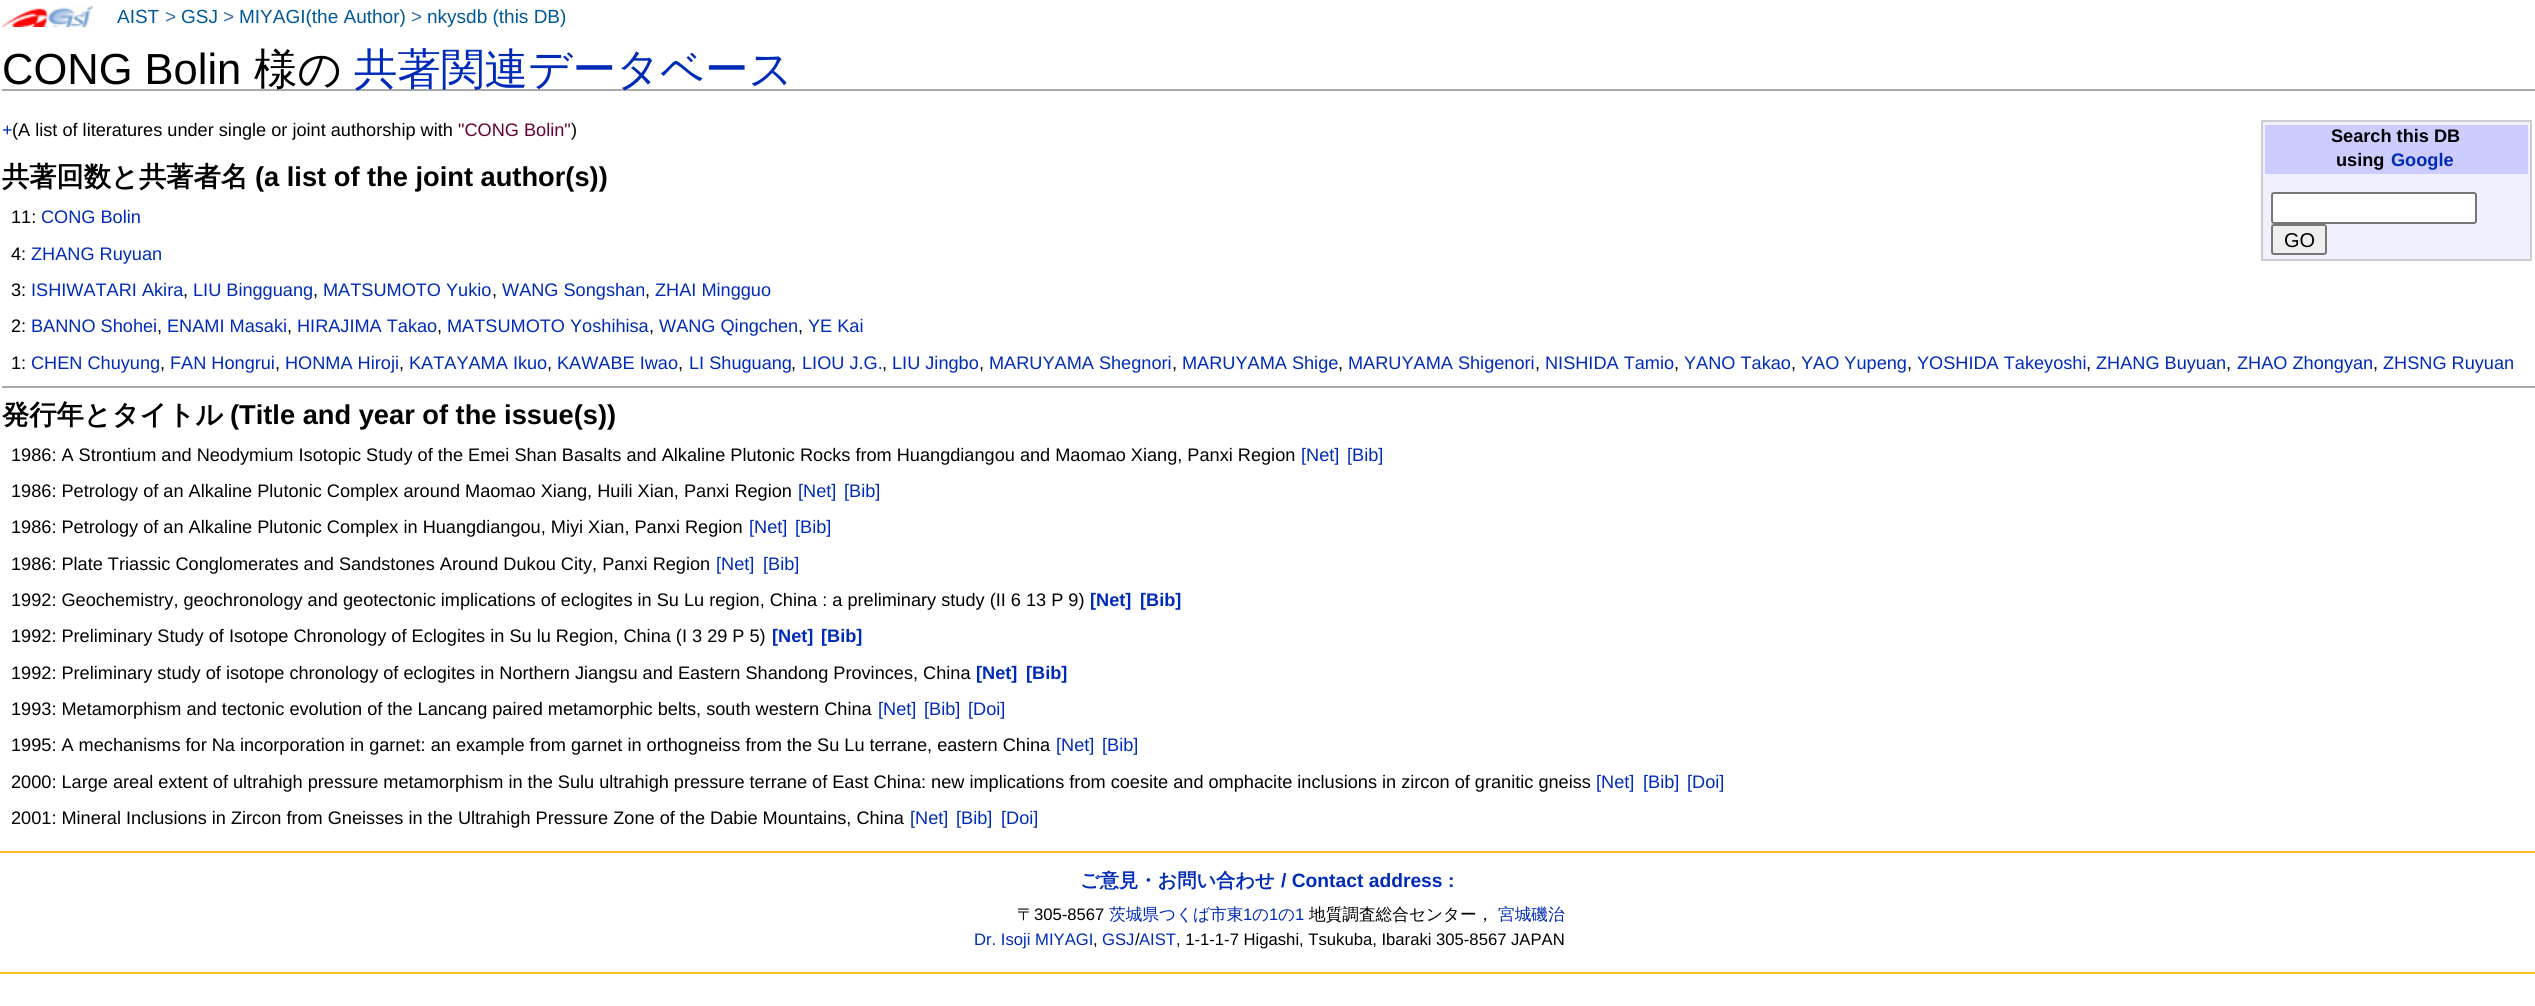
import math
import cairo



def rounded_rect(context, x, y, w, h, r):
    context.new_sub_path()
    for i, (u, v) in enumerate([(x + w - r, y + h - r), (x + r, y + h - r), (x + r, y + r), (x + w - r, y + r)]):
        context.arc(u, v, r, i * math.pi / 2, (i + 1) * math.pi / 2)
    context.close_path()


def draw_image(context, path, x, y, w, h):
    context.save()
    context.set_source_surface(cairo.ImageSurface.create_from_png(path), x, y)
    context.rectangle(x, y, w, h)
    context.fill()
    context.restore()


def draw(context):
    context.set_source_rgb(1, 1, 1)
    context.paint()
    draw_image(context, "images/1.png", 1, 6, 92, 21)
    context.set_source_rgb(170 / 255, 170 / 255, 170 / 255)
    context.rectangle(2, 89, 2533, 2)
    context.fill()
    context.set_source_rgb(240 / 255, 240 / 255, 1)
    context.rectangle(2262, 121, 269, 139)
    context.fill_preserve()
    context.set_source_rgb(204 / 255, 204 / 255, 204 / 255)
    context.stroke()
    context.set_source_rgb(204 / 255, 204 / 255, 1)
    context.rectangle(2265, 125, 263, 49)
    context.fill()
    context.set_source_rgb(1, 1, 1)
    rounded_rect(context, 2272, 193, 204, 30, 2)
    context.fill_preserve()
    context.set_source_rgb(118 / 255, 118 / 255, 118 / 255)
    context.stroke()
    context.set_source_rgb(239 / 255, 239 / 255, 239 / 255)
    rounded_rect(context, 2272, 225, 54, 29, 2)
    context.fill_preserve()
    context.set_source_rgb(118 / 255, 118 / 255, 118 / 255)
    context.stroke()
    context.set_source_rgb(170 / 255, 170 / 255, 170 / 255)
    context.rectangle(2, 386, 2533, 2)
    context.fill()
    context.set_source_rgb(250 / 255, 189 / 255, 35 / 255)
    context.rectangle(0, 851, 2535, 2)
    context.fill()
    context.rectangle(0, 972, 2535, 2)
    context.fill()
    context.select_font_face("Liberation Sans")
    context.set_font_size(19)
    context.set_source_rgb(0, 88 / 255, 150 / 255)
    context.move_to(117, 23)
    context.show_text("AIST")
    context.set_source_rgb(47 / 255, 111 / 255, 171 / 255)
    context.move_to(165, 23)
    context.show_text(">")
    context.set_source_rgb(0, 88 / 255, 150 / 255)
    context.move_to(181, 23)
    context.show_text("GSJ")
    context.set_source_rgb(47 / 255, 111 / 255, 171 / 255)
    context.move_to(223, 23)
    context.show_text(">")
    context.set_source_rgb(0, 88 / 255, 150 / 255)
    context.move_to(239, 23)
    context.show_text("MIYAGI(the Author)")
    context.set_source_rgb(47 / 255, 111 / 255, 171 / 255)
    context.move_to(411, 23)
    context.show_text(">")
    context.set_source_rgb(0, 88 / 255, 150 / 255)
    context.move_to(427, 23)
    context.show_text("nkysdb (this DB)")
    context.set_font_size(43.5)
    context.set_source_rgb(0, 0, 0)
    context.move_to(2, 84)
    context.show_text("CONG Bolin")
    context.select_font_face("WenQuanYi Zen Hei Medium")
    context.move_to(254, 84)
    context.show_text("様の")
    context.set_source_rgb(0, 43 / 255, 184 / 255)
    context.move_to(354, 84)
    context.show_text("共著関連データベース")
    context.select_font_face("Liberation Sans")
    context.set_font_size(18.15)
    context.move_to(2, 136)
    context.show_text("+")
    context.set_source_rgb(0, 0, 0)
    context.move_to(12, 136)
    context.show_text("(A list of literatures under single or joint authorship with")
    context.set_source_rgb(102 / 255, 0, 51 / 255)
    context.move_to(458, 136)
    context.show_text("\"CONG Bolin\"")
    context.set_source_rgb(0, 0, 0)
    context.move_to(571, 136)
    context.show_text(")")
    context.select_font_face("Liberation Sans", cairo.FontSlant.NORMAL, cairo.FontWeight.BOLD)
    context.move_to(2331, 142)
    context.show_text("Search this DB")
    context.move_to(2336, 166)
    context.show_text("using")
    context.set_source_rgb(0, 43 / 255, 184 / 255)
    context.move_to(2391, 166)
    context.show_text("Google")
    context.select_font_face("Liberation Sans")
    context.set_font_size(20)
    context.set_source_rgb(0, 0, 0)
    context.move_to(2284, 247)
    context.show_text("GO")
    context.select_font_face("WenQuanYi Zen Hei", cairo.FontSlant.NORMAL, cairo.FontWeight.BOLD)
    context.set_font_size(27.25)
    context.move_to(2, 186)
    context.show_text("共著回数と共著者名")
    context.select_font_face("Liberation Sans", cairo.FontSlant.NORMAL, cairo.FontWeight.BOLD)
    context.move_to(255, 186)
    context.show_text("(a list of the joint author(s))")
    context.select_font_face("Liberation Sans")
    context.set_font_size(18.15)
    context.move_to(11, 223)
    context.show_text("11:")
    context.set_source_rgb(0, 43 / 255, 184 / 255)
    context.move_to(41, 223)
    context.show_text("CONG Bolin")
    context.set_source_rgb(0, 0, 0)
    context.move_to(11, 260)
    context.show_text("4:")
    context.set_source_rgb(0, 43 / 255, 184 / 255)
    context.move_to(31, 260)
    context.show_text("ZHANG Ruyuan")
    context.set_source_rgb(0, 0, 0)
    context.move_to(11, 296)
    context.show_text("3:")
    context.set_source_rgb(0, 43 / 255, 184 / 255)
    context.move_to(31, 296)
    context.show_text("ISHIWATARI Akira")
    context.set_source_rgb(0, 0, 0)
    context.move_to(183, 296)
    context.show_text(",")
    context.set_source_rgb(0, 43 / 255, 184 / 255)
    context.move_to(193, 296)
    context.show_text("LIU Bingguang")
    context.set_source_rgb(0, 0, 0)
    context.move_to(313, 296)
    context.show_text(",")
    context.set_source_rgb(0, 43 / 255, 184 / 255)
    context.move_to(323, 296)
    context.show_text("MATSUMOTO Yukio")
    context.set_source_rgb(0, 0, 0)
    context.move_to(492, 296)
    context.show_text(",")
    context.set_source_rgb(0, 43 / 255, 184 / 255)
    context.move_to(502, 296)
    context.show_text("WANG Songshan")
    context.set_source_rgb(0, 0, 0)
    context.move_to(645, 296)
    context.show_text(",")
    context.set_source_rgb(0, 43 / 255, 184 / 255)
    context.move_to(655, 296)
    context.show_text("ZHAI Mingguo")
    context.set_source_rgb(0, 0, 0)
    context.move_to(11, 332)
    context.show_text("2:")
    context.set_source_rgb(0, 43 / 255, 184 / 255)
    context.move_to(31, 332)
    context.show_text("BANNO Shohei")
    context.move_to(167, 332)
    context.show_text("ENAMI Masaki")
    context.move_to(297, 332)
    context.show_text("HIRAJIMA Takao")
    context.move_to(447, 332)
    context.show_text("MATSUMOTO Yoshihisa")
    context.move_to(659, 332)
    context.show_text("WANG Qingchen")
    context.move_to(808, 332)
    context.show_text("YE Kai")
    context.set_source_rgb(0, 0, 0)
    context.move_to(157, 332)
    context.show_text(",")
    context.move_to(287, 332)
    context.show_text(",")
    context.move_to(437, 332)
    context.show_text(",")
    context.move_to(649, 332)
    context.show_text(",")
    context.move_to(798, 332)
    context.show_text(",")
    context.move_to(11, 369)
    context.show_text("1:")
    context.set_source_rgb(0, 43 / 255, 184 / 255)
    context.move_to(31, 369)
    context.show_text("CHEN Chuyung")
    context.set_source_rgb(0, 0, 0)
    context.move_to(160, 369)
    context.show_text(",")
    context.set_source_rgb(0, 43 / 255, 184 / 255)
    context.move_to(170, 369)
    context.show_text("FAN Hongrui")
    context.set_source_rgb(0, 0, 0)
    context.move_to(275, 369)
    context.show_text(",")
    context.set_source_rgb(0, 43 / 255, 184 / 255)
    context.move_to(285, 369)
    context.show_text("HONMA Hiroji")
    context.set_source_rgb(0, 0, 0)
    context.move_to(399, 369)
    context.show_text(",")
    context.set_source_rgb(0, 43 / 255, 184 / 255)
    context.move_to(409, 369)
    context.show_text("KATAYAMA Ikuo")
    context.set_source_rgb(0, 0, 0)
    context.move_to(547, 369)
    context.show_text(",")
    context.set_source_rgb(0, 43 / 255, 184 / 255)
    context.move_to(557, 369)
    context.show_text("KAWABE Iwao")
    context.set_source_rgb(0, 0, 0)
    context.move_to(678, 369)
    context.show_text(",")
    context.set_source_rgb(0, 43 / 255, 184 / 255)
    context.move_to(689, 369)
    context.show_text("LI Shuguang")
    context.set_source_rgb(0, 0, 0)
    context.move_to(791, 369)
    context.show_text(",")
    context.set_source_rgb(0, 43 / 255, 184 / 255)
    context.move_to(802, 369)
    context.show_text("LIOU J.G.")
    context.set_source_rgb(0, 0, 0)
    context.move_to(882, 369)
    context.show_text(",")
    context.set_source_rgb(0, 43 / 255, 184 / 255)
    context.move_to(892, 369)
    context.show_text("LIU Jingbo")
    context.set_source_rgb(0, 0, 0)
    context.move_to(979, 369)
    context.show_text(",")
    context.set_source_rgb(0, 43 / 255, 184 / 255)
    context.move_to(989, 369)
    context.show_text("MARUYAMA Shegnori")
    context.set_source_rgb(0, 0, 0)
    context.move_to(1172, 369)
    context.show_text(",")
    context.set_source_rgb(0, 43 / 255, 184 / 255)
    context.move_to(1182, 369)
    context.show_text("MARUYAMA Shige")
    context.set_source_rgb(0, 0, 0)
    context.move_to(1338, 369)
    context.show_text(",")
    context.set_source_rgb(0, 43 / 255, 184 / 255)
    context.move_to(1348, 369)
    context.show_text("MARUYAMA Shigenori")
    context.set_source_rgb(0, 0, 0)
    context.move_to(1535, 369)
    context.show_text(",")
    context.set_source_rgb(0, 43 / 255, 184 / 255)
    context.move_to(1545, 369)
    context.show_text("NISHIDA Tamio")
    context.set_source_rgb(0, 0, 0)
    context.move_to(1674, 369)
    context.show_text(",")
    context.set_source_rgb(0, 43 / 255, 184 / 255)
    context.move_to(1684, 369)
    context.show_text("YANO Takao")
    context.set_source_rgb(0, 0, 0)
    context.move_to(1791, 369)
    context.show_text(",")
    context.set_source_rgb(0, 43 / 255, 184 / 255)
    context.move_to(1801, 369)
    context.show_text("YAO Yupeng")
    context.set_source_rgb(0, 0, 0)
    context.move_to(1907, 369)
    context.show_text(",")
    context.set_source_rgb(0, 43 / 255, 184 / 255)
    context.move_to(1917, 369)
    context.show_text("YOSHIDA Takeyoshi")
    context.set_source_rgb(0, 0, 0)
    context.move_to(2086, 369)
    context.show_text(",")
    context.set_source_rgb(0, 43 / 255, 184 / 255)
    context.move_to(2096, 369)
    context.show_text("ZHANG Buyuan")
    context.set_source_rgb(0, 0, 0)
    context.move_to(2226, 369)
    context.show_text(",")
    context.set_source_rgb(0, 43 / 255, 184 / 255)
    context.move_to(2237, 369)
    context.show_text("ZHAO Zhongyan")
    context.set_source_rgb(0, 0, 0)
    context.move_to(2373, 369)
    context.show_text(",")
    context.set_source_rgb(0, 43 / 255, 184 / 255)
    context.move_to(2383, 369)
    context.show_text("ZHSNG Ruyuan")
    context.select_font_face("WenQuanYi Zen Hei", cairo.FontSlant.NORMAL, cairo.FontWeight.BOLD)
    context.set_font_size(27.25)
    context.set_source_rgb(0, 0, 0)
    context.move_to(2, 424)
    context.show_text("発行年とタイトル")
    context.select_font_face("Liberation Sans", cairo.FontSlant.NORMAL, cairo.FontWeight.BOLD)
    context.move_to(230, 424)
    context.show_text("(Title and year of the issue(s))")
    context.select_font_face("Liberation Sans")
    context.set_font_size(18.15)
    context.move_to(11, 461)
    context.show_text("1986: A Strontium and Neodymium Isotopic Study of the Emei Shan Basalts and Alkaline Plutonic Rocks from Huangdiangou and Maomao Xiang, Panxi Region")
    context.set_source_rgb(0, 43 / 255, 184 / 255)
    context.move_to(1301, 461)
    context.show_text("[Net]")
    context.move_to(1347, 461)
    context.show_text("[Bib]")
    context.set_source_rgb(0, 0, 0)
    context.move_to(11, 497)
    context.show_text("1986: Petrology of an Alkaline Plutonic Complex around Maomao Xiang, Huili Xian, Panxi Region")
    context.set_source_rgb(0, 43 / 255, 184 / 255)
    context.move_to(798, 497)
    context.show_text("[Net]")
    context.move_to(844, 497)
    context.show_text("[Bib]")
    context.set_source_rgb(0, 0, 0)
    context.move_to(11, 533)
    context.show_text("1986: Petrology of an Alkaline Plutonic Complex in Huangdiangou, Miyi Xian, Panxi Region")
    context.set_source_rgb(0, 43 / 255, 184 / 255)
    context.move_to(749, 533)
    context.show_text("[Net]")
    context.move_to(795, 533)
    context.show_text("[Bib]")
    context.set_source_rgb(0, 0, 0)
    context.move_to(11, 570)
    context.show_text("1986: Plate Triassic Conglomerates and Sandstones Around Dukou City, Panxi Region")
    context.set_source_rgb(0, 43 / 255, 184 / 255)
    context.move_to(716, 570)
    context.show_text("[Net]")
    context.move_to(763, 570)
    context.show_text("[Bib]")
    context.set_source_rgb(0, 0, 0)
    context.move_to(11, 606)
    context.show_text("1992: Geochemistry, geochronology and geotectonic implications of eclogites in Su Lu region, China : a preliminary study (II 6 13 P 9)")
    context.select_font_face("Liberation Sans", cairo.FontSlant.NORMAL, cairo.FontWeight.BOLD)
    context.set_source_rgb(0, 43 / 255, 184 / 255)
    context.move_to(1090, 606)
    context.show_text("[Net]")
    context.move_to(1140, 606)
    context.show_text("[Bib]")
    context.select_font_face("Liberation Sans")
    context.set_source_rgb(0, 0, 0)
    context.move_to(11, 642)
    context.show_text("1992: Preliminary Study of Isotope Chronology of Eclogites in Su lu Region, China (I 3 29 P 5)")
    context.select_font_face("Liberation Sans", cairo.FontSlant.NORMAL, cairo.FontWeight.BOLD)
    context.set_source_rgb(0, 43 / 255, 184 / 255)
    context.move_to(772, 642)
    context.show_text("[Net]")
    context.move_to(821, 642)
    context.show_text("[Bib]")
    context.select_font_face("Liberation Sans")
    context.set_source_rgb(0, 0, 0)
    context.move_to(11, 679)
    context.show_text("1992: Preliminary study of isotope chronology of eclogites in Northern Jiangsu and Eastern Shandong Provinces, China")
    context.select_font_face("Liberation Sans", cairo.FontSlant.NORMAL, cairo.FontWeight.BOLD)
    context.set_source_rgb(0, 43 / 255, 184 / 255)
    context.move_to(976, 679)
    context.show_text("[Net]")
    context.move_to(1026, 679)
    context.show_text("[Bib]")
    context.select_font_face("Liberation Sans")
    context.set_source_rgb(0, 0, 0)
    context.move_to(11, 715)
    context.show_text("1993: Metamorphism and tectonic evolution of the Lancang paired metamorphic belts, south western China")
    context.set_source_rgb(0, 43 / 255, 184 / 255)
    context.move_to(878, 715)
    context.show_text("[Net]")
    context.move_to(924, 715)
    context.show_text("[Bib]")
    context.move_to(968, 715)
    context.show_text("[Doi]")
    context.set_source_rgb(0, 0, 0)
    context.move_to(11, 751)
    context.show_text("1995: A mechanisms for Na incorporation in garnet: an example from garnet in orthogneiss from the Su Lu terrane, eastern China")
    context.set_source_rgb(0, 43 / 255, 184 / 255)
    context.move_to(1056, 751)
    context.show_text("[Net]")
    context.move_to(1102, 751)
    context.show_text("[Bib]")
    context.set_source_rgb(0, 0, 0)
    context.move_to(11, 788)
    context.show_text("2000: Large areal extent of ultrahigh pressure metamorphism in the Sulu ultrahigh pressure terrane of East China: new implications from coesite and omphacite inclusions in zircon of granitic gneiss")
    context.set_source_rgb(0, 43 / 255, 184 / 255)
    context.move_to(1596, 788)
    context.show_text("[Net]")
    context.move_to(1643, 788)
    context.show_text("[Bib]")
    context.move_to(1687, 788)
    context.show_text("[Doi]")
    context.set_source_rgb(0, 0, 0)
    context.move_to(11, 824)
    context.show_text("2001: Mineral Inclusions in Zircon from Gneisses in the Ultrahigh Pressure Zone of the Dabie Mountains, China")
    context.set_source_rgb(0, 43 / 255, 184 / 255)
    context.move_to(910, 824)
    context.show_text("[Net]")
    context.move_to(956, 824)
    context.show_text("[Bib]")
    context.move_to(1001, 824)
    context.show_text("[Doi]")
    context.select_font_face("WenQuanYi Zen Hei", cairo.FontSlant.NORMAL, cairo.FontWeight.BOLD)
    context.set_font_size(19.25)
    context.move_to(1080, 887)
    context.show_text("ご意見・お問い合わせ")
    context.select_font_face("Liberation Sans", cairo.FontSlant.NORMAL, cairo.FontWeight.BOLD)
    context.move_to(1281, 887)
    context.show_text("/ Contact address :")
    context.select_font_face("WenQuanYi Zen Hei Medium")
    context.set_font_size(16.65)
    context.set_source_rgb(0, 0, 0)
    context.move_to(1017, 920)
    context.show_text("〒")
    context.select_font_face("Liberation Sans")
    context.move_to(1034, 920)
    context.show_text("305-8567")
    context.select_font_face("WenQuanYi Zen Hei Medium")
    context.set_source_rgb(0, 43 / 255, 184 / 255)
    context.move_to(1109, 920)
    context.show_text("茨城県つくば市東")
    context.select_font_face("Liberation Sans")
    context.move_to(1243, 920)
    context.show_text("1")
    context.select_font_face("WenQuanYi Zen Hei Medium")
    context.move_to(1252, 920)
    context.show_text("の")
    context.select_font_face("Liberation Sans")
    context.move_to(1269, 920)
    context.show_text("1")
    context.select_font_face("WenQuanYi Zen Hei Medium")
    context.move_to(1278, 920)
    context.show_text("の")
    context.select_font_face("Liberation Sans")
    context.move_to(1295, 920)
    context.show_text("1")
    context.select_font_face("WenQuanYi Zen Hei Medium")
    context.set_source_rgb(0, 0, 0)
    context.move_to(1309, 920)
    context.show_text("地質調査総合センター，")
    context.set_source_rgb(0, 43 / 255, 184 / 255)
    context.move_to(1498, 920)
    context.show_text("宮城磯治")
    context.select_font_face("Liberation Sans")
    context.move_to(974, 945)
    context.show_text("Dr. Isoji MIYAGI")
    context.set_source_rgb(0, 0, 0)
    context.move_to(1093, 945)
    context.show_text(",")
    context.set_source_rgb(0, 43 / 255, 184 / 255)
    context.move_to(1102, 945)
    context.show_text("GSJ")
    context.set_source_rgb(0, 0, 0)
    context.move_to(1135, 945)
    context.show_text("/")
    context.set_source_rgb(0, 43 / 255, 184 / 255)
    context.move_to(1139, 945)
    context.show_text("AIST")
    context.set_source_rgb(0, 0, 0)
    context.move_to(1176, 945)
    context.show_text(", 1-1-1-7 Higashi, Tsukuba, Ibaraki 305-8567 JAPAN")


surface = cairo.ImageSurface(cairo.Format.RGB24, 2535, 1006)
context = cairo.Context(surface)
options = cairo.FontOptions()
options.set_hint_metrics(cairo.HintMetrics.OFF)
options.set_hint_style(cairo.HintStyle.NONE)
context.set_font_options(options)
context.set_miter_limit(4)
draw(context)
surface.write_to_png("out.png")
